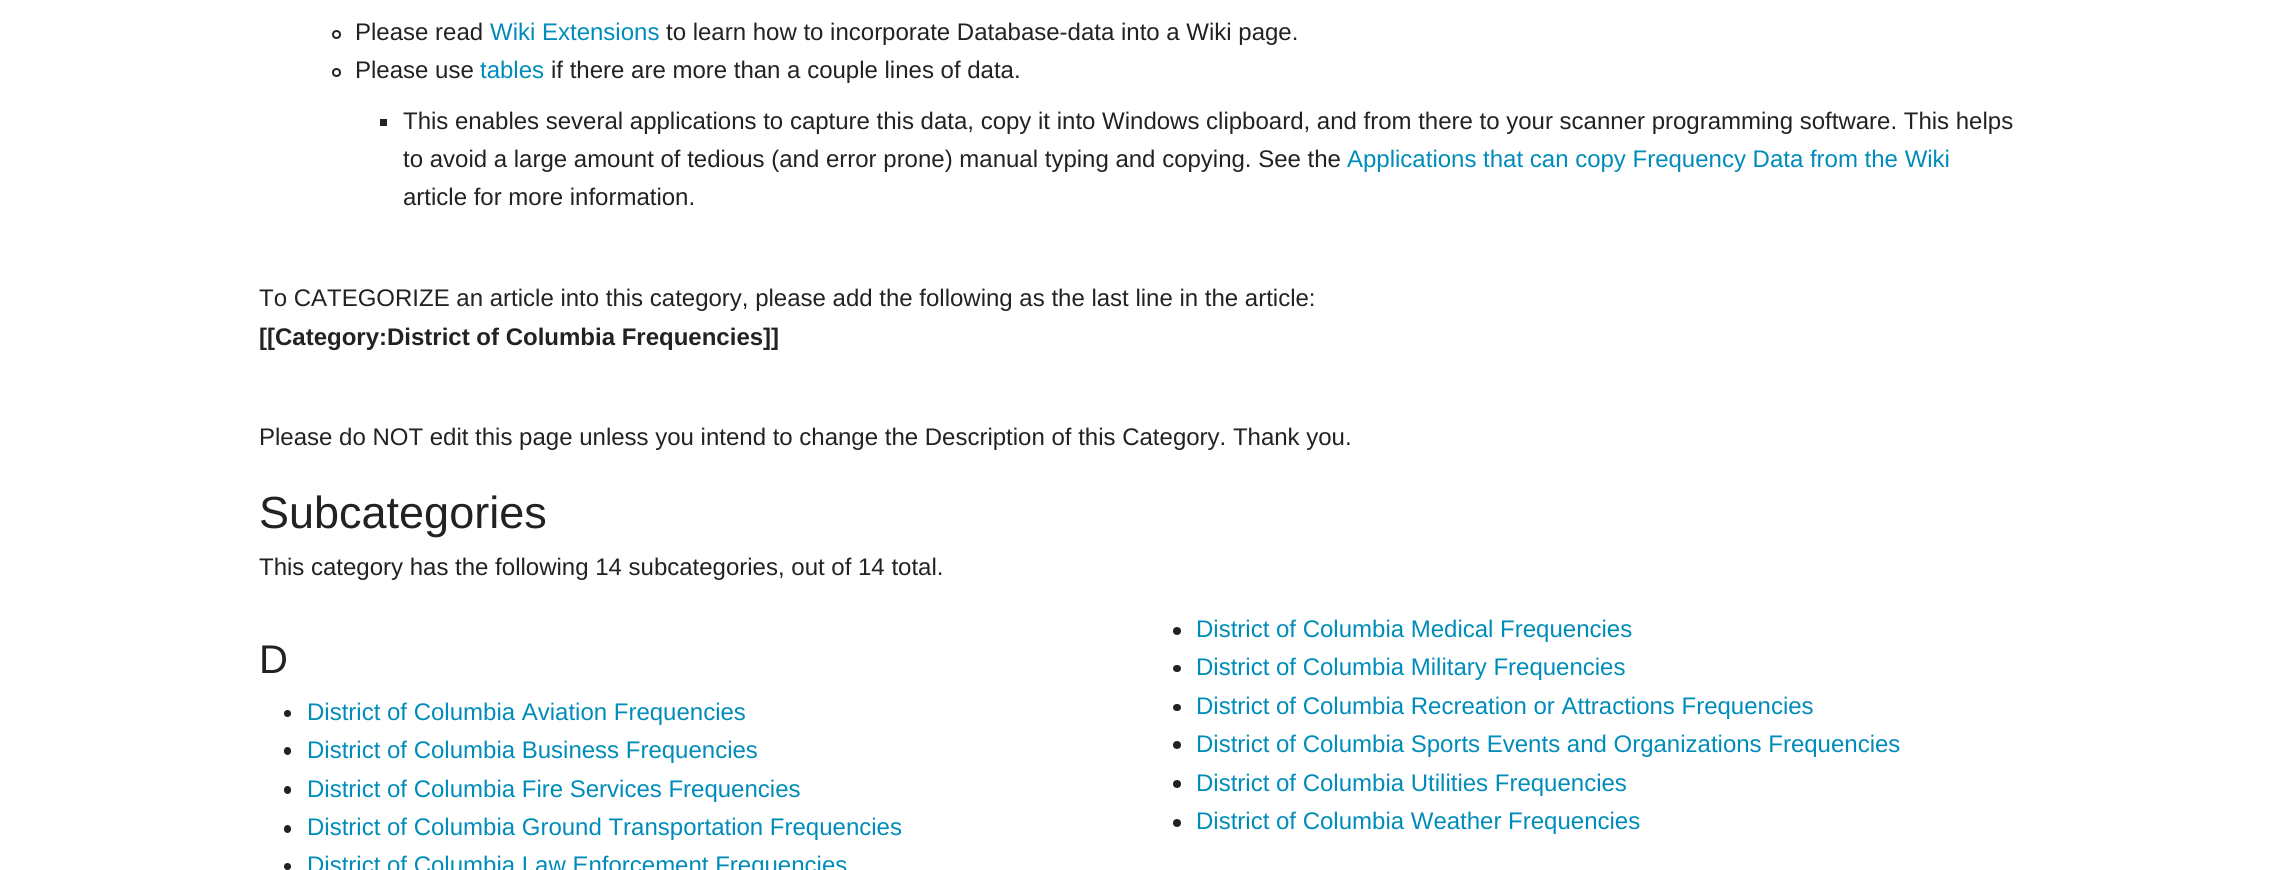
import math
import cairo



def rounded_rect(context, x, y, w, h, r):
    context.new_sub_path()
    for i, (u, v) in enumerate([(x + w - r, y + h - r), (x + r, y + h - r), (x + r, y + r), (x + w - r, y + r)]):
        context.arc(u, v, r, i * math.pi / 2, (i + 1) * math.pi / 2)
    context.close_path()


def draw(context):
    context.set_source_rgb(1, 1, 1)
    context.paint()
    context.arc(336.5, 34.5, 3.5, 0, 2 * math.pi)
    context.set_source_rgb(34 / 255, 34 / 255, 34 / 255)
    context.stroke()
    context.arc(336.5, 72.5, 3.5, 0, 2 * math.pi)
    context.stroke()
    context.rectangle(380, 119, 7, 7)
    context.fill()
    context.arc(1177, 631, 4, 0, 2 * math.pi)
    context.fill()
    rounded_rect(context, 1173, 665, 8, 7, 3.5)
    context.fill()
    context.arc(287.5, 713.5, 3.5, 0, 2 * math.pi)
    context.fill()
    rounded_rect(context, 1173, 704, 8, 7, 3.5)
    context.fill()
    rounded_rect(context, 284, 747, 7, 8, 3.5)
    context.fill()
    context.arc(1177, 745, 4, 0, 2 * math.pi)
    context.fill()
    rounded_rect(context, 284, 786, 7, 8, 3.5)
    context.fill()
    context.arc(1177, 784, 4, 0, 2 * math.pi)
    context.fill()
    rounded_rect(context, 284, 825, 7, 8, 3.5)
    context.fill()
    context.arc(1177, 823, 4, 0, 2 * math.pi)
    context.fill()
    context.arc(287.5, 866.5, 3.5, 0, 2 * math.pi)
    context.fill()
    context.select_font_face("Liberation Sans")
    context.set_font_size(24)
    context.move_to(355, 40)
    context.show_text("Please read")
    context.set_source_rgb(0, 140 / 255, 186 / 255)
    context.move_to(490, 40)
    context.show_text("Wiki Extensions")
    context.set_source_rgb(34 / 255, 34 / 255, 34 / 255)
    context.move_to(666, 40)
    context.show_text("to learn how to incorporate Database-data into a Wiki page.")
    context.move_to(355, 78)
    context.show_text("Please use")
    context.set_source_rgb(0, 140 / 255, 186 / 255)
    context.move_to(480, 78)
    context.show_text("tables")
    context.set_source_rgb(34 / 255, 34 / 255, 34 / 255)
    context.move_to(551, 78)
    context.show_text("if there are more than a couple lines of data.")
    context.move_to(403, 129)
    context.show_text("This enables several applications to capture this data, copy it into Windows clipboard, and from there to your scanner programming software. This helps")
    context.move_to(403, 167)
    context.show_text("to avoid a large amount of tedious (and error prone) manual typing and copying. See the")
    context.set_source_rgb(0, 140 / 255, 186 / 255)
    context.move_to(1347, 167)
    context.show_text("Applications that can copy Frequency Data from the Wiki")
    context.set_source_rgb(34 / 255, 34 / 255, 34 / 255)
    context.move_to(403, 205)
    context.show_text("article for more information.")
    context.move_to(259, 306)
    context.show_text("To CATEGORIZE an article into this category, please add the following as the last line in the article:")
    context.select_font_face("Liberation Sans", cairo.FontSlant.NORMAL, cairo.FontWeight.BOLD)
    context.move_to(259, 345)
    context.show_text("[[Category:District of Columbia Frequencies]]")
    context.select_font_face("Liberation Sans")
    context.move_to(259, 445)
    context.show_text("Please do NOT edit this page unless you intend to change the Description of this Category. Thank you.")
    context.set_font_size(45)
    context.move_to(259, 528)
    context.show_text("Subcategories")
    context.set_font_size(24)
    context.move_to(259, 575)
    context.show_text("This category has the following 14 subcategories, out of 14 total.")
    context.set_font_size(40)
    context.move_to(259, 673)
    context.show_text("D")
    context.set_font_size(24)
    context.set_source_rgb(0, 140 / 255, 186 / 255)
    context.move_to(1196, 637)
    context.show_text("District of Columbia Medical Frequencies")
    context.move_to(1196, 675)
    context.show_text("District of Columbia Military Frequencies")
    context.move_to(307, 720)
    context.show_text("District of Columbia Aviation Frequencies")
    context.move_to(1196, 714)
    context.show_text("District of Columbia Recreation or Attractions Frequencies")
    context.move_to(307, 758)
    context.show_text("District of Columbia Business Frequencies")
    context.move_to(1196, 752)
    context.show_text("District of Columbia Sports Events and Organizations Frequencies")
    context.move_to(307, 797)
    context.show_text("District of Columbia Fire Services Frequencies")
    context.move_to(1196, 791)
    context.show_text("District of Columbia Utilities Frequencies")
    context.move_to(307, 835)
    context.show_text("District of Columbia Ground Transportation Frequencies")
    context.move_to(1196, 829)
    context.show_text("District of Columbia Weather Frequencies")
    context.move_to(307, 873)
    context.show_text("District of Columbia Law Enforcement Frequencies")


surface = cairo.ImageSurface(cairo.Format.RGB24, 2272, 870)
context = cairo.Context(surface)
options = cairo.FontOptions()
options.set_hint_metrics(cairo.HintMetrics.OFF)
options.set_hint_style(cairo.HintStyle.NONE)
context.set_font_options(options)
context.set_miter_limit(4)
draw(context)
surface.write_to_png("out.png")
